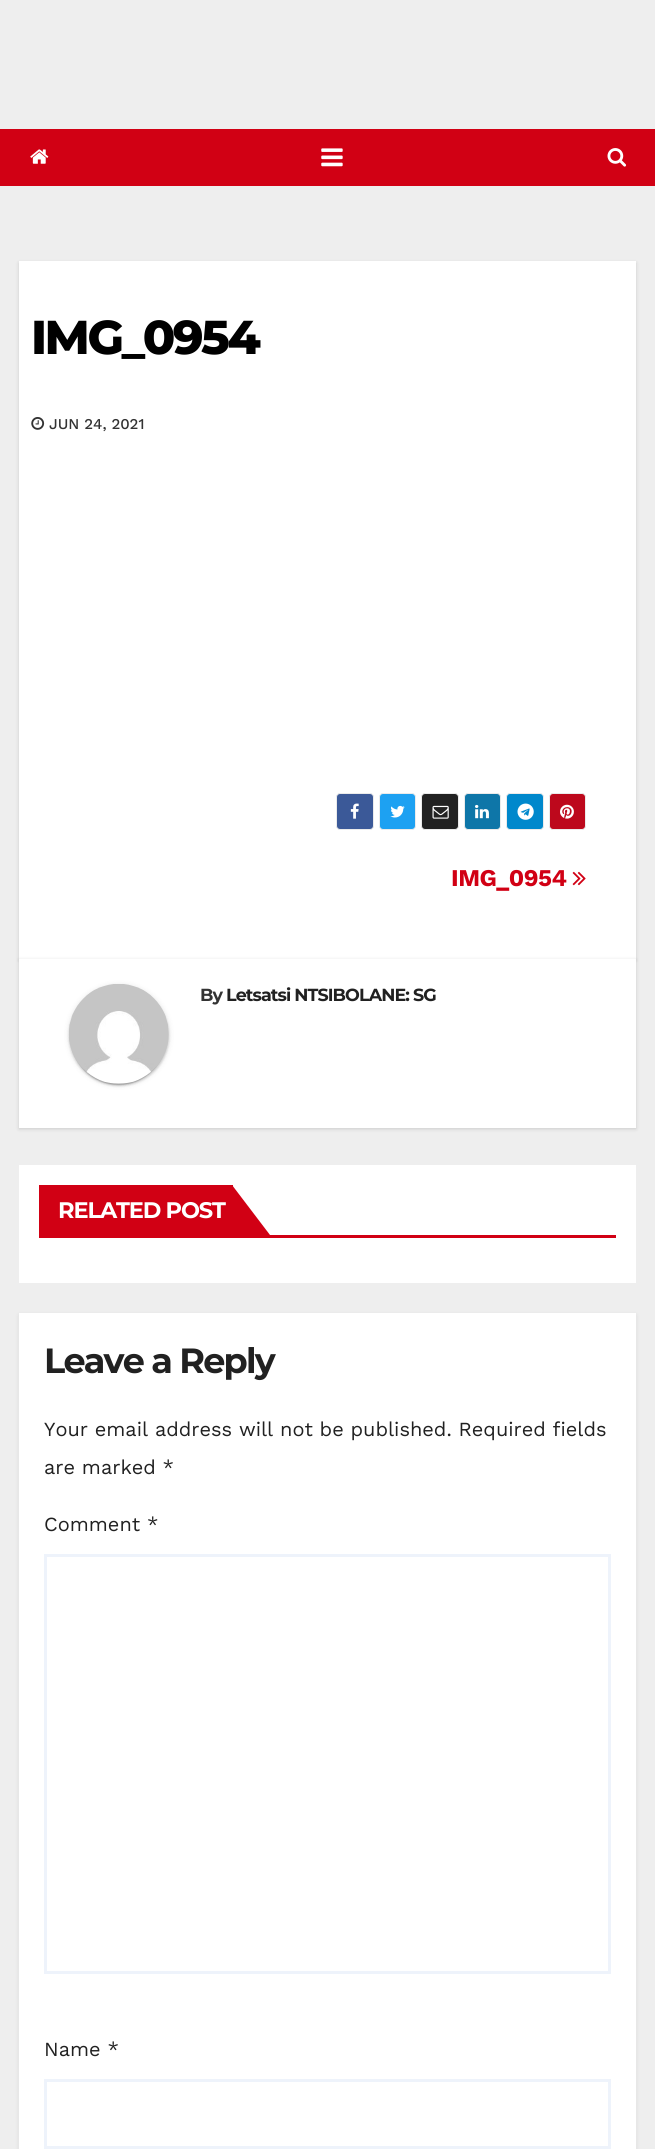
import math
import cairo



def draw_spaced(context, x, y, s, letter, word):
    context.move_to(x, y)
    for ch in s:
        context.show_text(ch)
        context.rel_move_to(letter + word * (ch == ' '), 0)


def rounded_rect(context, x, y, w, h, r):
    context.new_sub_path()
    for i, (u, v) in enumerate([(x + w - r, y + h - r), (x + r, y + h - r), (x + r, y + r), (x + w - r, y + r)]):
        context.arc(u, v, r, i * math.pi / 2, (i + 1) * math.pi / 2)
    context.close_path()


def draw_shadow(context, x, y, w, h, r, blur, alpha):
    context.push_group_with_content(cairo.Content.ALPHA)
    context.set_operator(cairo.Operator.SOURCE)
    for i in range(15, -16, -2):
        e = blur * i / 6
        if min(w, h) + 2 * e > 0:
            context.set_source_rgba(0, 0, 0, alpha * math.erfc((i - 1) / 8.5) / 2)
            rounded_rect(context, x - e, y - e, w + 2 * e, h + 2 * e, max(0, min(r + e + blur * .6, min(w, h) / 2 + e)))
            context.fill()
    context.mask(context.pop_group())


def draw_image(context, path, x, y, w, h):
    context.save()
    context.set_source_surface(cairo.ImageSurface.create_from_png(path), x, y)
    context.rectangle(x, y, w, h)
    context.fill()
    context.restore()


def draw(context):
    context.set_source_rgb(238 / 255, 238 / 255, 238 / 255)
    context.paint()
    context.set_source_rgb(209 / 255, 0, 20 / 255)
    context.rectangle(0, 129, 655, 57)
    context.fill()
    draw_image(context, "images/1.png", 30, 149, 19, 15)
    draw_image(context, "images/2.png", 321, 148, 22, 19)
    draw_image(context, "images/3.png", 607, 148, 20, 19)
    context.set_source_rgb(0, 0, 0)
    draw_shadow(context, 19, 263, 617, 697, 0, 2, 0.15)
    context.set_source_rgb(1, 1, 1)
    context.rectangle(19, 261, 617, 698)
    context.fill()
    draw_image(context, "images/4.png", 31, 417, 14, 13)
    context.set_source_rgb(59 / 255, 89 / 255, 152 / 255)
    rounded_rect(context, 336.5, 793.5, 37, 36, 3.5)
    context.fill_preserve()
    context.set_source_rgb(235 / 255, 235 / 255, 235 / 255)
    context.set_line_width(1)
    context.stroke()
    draw_image(context, "images/5.png", 350, 803, 9, 16)
    context.set_source_rgb(29 / 255, 161 / 255, 242 / 255)
    rounded_rect(context, 379.5, 793.5, 36, 36, 3.5)
    context.fill_preserve()
    context.set_source_rgb(235 / 255, 235 / 255, 235 / 255)
    context.stroke()
    draw_image(context, "images/6.png", 390, 805, 15, 13)
    context.set_source_rgb(34 / 255, 34 / 255, 34 / 255)
    rounded_rect(context, 421.5, 793.5, 37, 36, 3.5)
    context.fill_preserve()
    context.set_source_rgb(235 / 255, 235 / 255, 235 / 255)
    context.stroke()
    draw_image(context, "images/7.png", 432, 805, 17, 14)
    context.set_source_rgb(14 / 255, 118 / 255, 168 / 255)
    rounded_rect(context, 464.5, 793.5, 36, 36, 3.5)
    context.fill_preserve()
    context.set_source_rgb(235 / 255, 235 / 255, 235 / 255)
    context.stroke()
    draw_image(context, "images/8.png", 475, 804, 14, 15)
    context.set_source_rgb(0, 136 / 255, 204 / 255)
    rounded_rect(context, 506.5, 793.5, 37, 36, 3.5)
    context.fill_preserve()
    context.set_source_rgb(235 / 255, 235 / 255, 235 / 255)
    context.stroke()
    draw_image(context, "images/9.png", 517, 803, 17, 17)
    context.set_source_rgb(189 / 255, 8 / 255, 28 / 255)
    rounded_rect(context, 549.5, 793.5, 36, 36, 3.5)
    context.fill_preserve()
    context.set_source_rgb(235 / 255, 235 / 255, 235 / 255)
    context.stroke()
    draw_image(context, "images/10.png", 560, 804, 14, 15)
    draw_image(context, "images/11.png", 572, 871, 14, 15)
    context.set_source_rgb(0, 0, 0)
    draw_shadow(context, 19, 960, 617, 169, 0, 2, 0.15)
    context.set_source_rgb(1, 1, 1)
    context.rectangle(19, 959, 617, 169)
    context.fill()
    context.set_source_rgb(0, 0, 0)
    draw_shadow(context, 69, 985, 100, 100, 50, 3, 0.12)
    draw_shadow(context, 71, 990, 95, 95, 47.5, 0.5, 0.2)
    draw_shadow(context, 69, 986, 100, 100, 50, 1, 0.14)
    draw_image(context, "images/12.png", 69, 984, 100, 100)
    context.set_source_rgb(1, 1, 1)
    context.rectangle(19, 1165, 617, 118)
    context.fill()
    context.set_source_rgb(209 / 255, 0, 20 / 255)
    context.rectangle(39, 1235, 577, 3)
    context.fill()
    context.rectangle(39, 1185, 194, 50)
    context.fill()
    context.new_path()
    context.move_to(232, 1235)
    context.line_to(232, 1185)
    context.line_to(270, 1235)
    context.close_path()
    context.fill()
    context.set_source_rgb(0, 0, 0)
    draw_shadow(context, 19, 1315, 617, 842, 0, 2.5, 0.08)
    context.set_source_rgb(1, 1, 1)
    context.rectangle(19, 1313, 617, 836)
    context.fill()
    context.rectangle(45.5, 1555.5, 564, 417)
    context.set_source_rgb(238 / 255, 243 / 255, 251 / 255)
    context.set_line_width(3)
    context.stroke()
    context.rectangle(45.5, 2080.5, 564, 67)
    context.stroke()
    context.select_font_face("Montserrat ExtraBold")
    context.set_font_size(47.5)
    context.set_source_rgb(0, 0, 0)
    draw_spaced(context, 31, 354, "IMG_0954", -2.5, 0)
    context.select_font_face("Work Sans Medium")
    context.set_font_size(15)
    context.set_source_rgb(51 / 255, 51 / 255, 51 / 255)
    context.move_to(49, 429)
    context.show_text("JUN 24, 2021")
    context.select_font_face("Work Sans", cairo.FontSlant.NORMAL, cairo.FontWeight.BOLD)
    context.set_font_size(24)
    context.set_source_rgb(209 / 255, 0, 20 / 255)
    draw_spaced(context, 451, 886, "IMG_0954", -0.5, 0)
    context.select_font_face("Montserrat", cairo.FontSlant.NORMAL, cairo.FontWeight.BOLD)
    context.set_font_size(17.5)
    context.set_source_rgb(51 / 255, 51 / 255, 51 / 255)
    draw_spaced(context, 200, 1001, "By", -0.9, 0)
    context.set_source_rgb(33 / 255, 33 / 255, 33 / 255)
    draw_spaced(context, 226, 1001, "Letsatsi NTSIBOLANE: SG", -0.9, 0)
    context.set_font_size(22.5)
    context.set_source_rgb(1, 1, 1)
    draw_spaced(context, 58, 1218, "RELATED POST", -1.1, 0)
    context.set_font_size(35)
    context.set_source_rgb(33 / 255, 33 / 255, 33 / 255)
    draw_spaced(context, 44, 1373, "Leave a Reply", -1.75, 0)
    context.select_font_face("Work Sans")
    context.set_font_size(20)
    context.move_to(44, 1436)
    context.show_text("Your email address will not be published. Required fields")
    context.move_to(44, 1474)
    context.show_text("are marked *")
    context.move_to(44, 1531)
    context.show_text("Comment *")
    context.move_to(44, 2056)
    context.show_text("Name *")


surface = cairo.ImageSurface(cairo.Format.RGB24, 655, 2149)
context = cairo.Context(surface)
options = cairo.FontOptions()
options.set_hint_metrics(cairo.HintMetrics.OFF)
options.set_hint_style(cairo.HintStyle.NONE)
context.set_font_options(options)
context.set_miter_limit(4)
draw(context)
surface.write_to_png("out.png")
